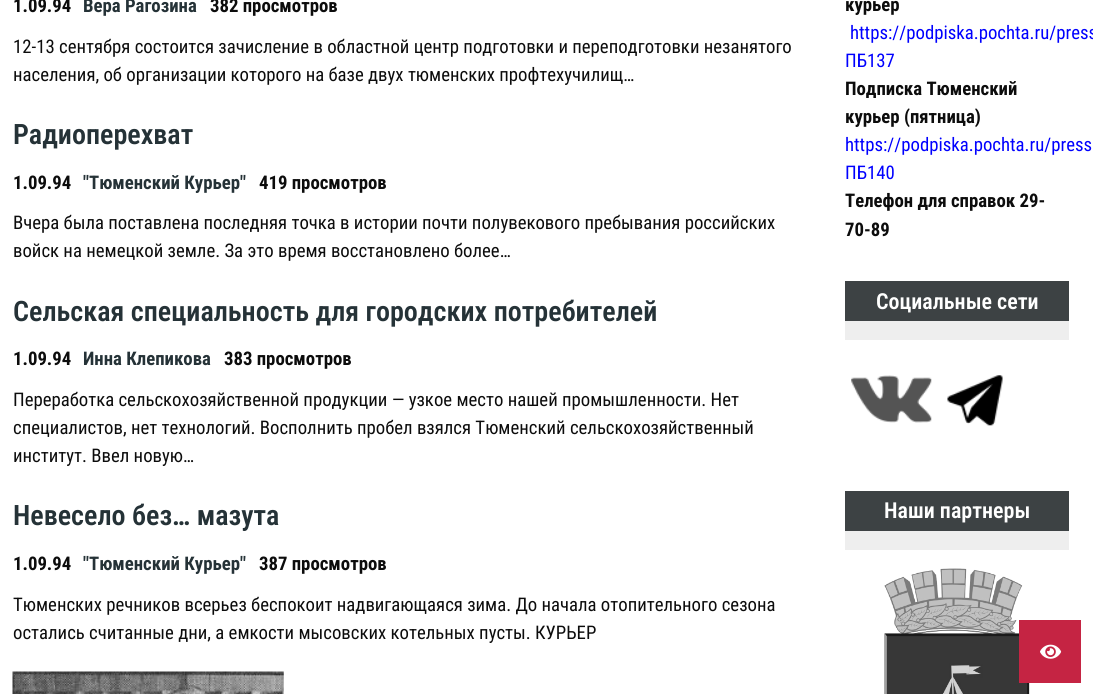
import math
import cairo



def draw_image(context, path, x, y, w, h):
    context.save()
    context.set_source_surface(cairo.ImageSurface.create_from_png(path), x, y)
    context.rectangle(x, y, w, h)
    context.fill()
    context.restore()


def draw(context):
    context.set_source_rgb(1, 1, 1)
    context.paint()
    draw_image(context, "images/1.png", 12, 671, 272, 23)
    context.set_source_rgb(61 / 255, 66 / 255, 68 / 255)
    context.rectangle(845, 281, 224, 40)
    context.fill()
    context.set_source_rgb(238 / 255, 238 / 255, 238 / 255)
    context.rectangle(845, 321, 224, 19)
    context.fill()
    draw_image(context, "images/2.png", 851, 375, 81, 48)
    draw_image(context, "images/3.png", 947, 375, 56, 51)
    context.set_source_rgb(61 / 255, 66 / 255, 68 / 255)
    context.rectangle(845, 491, 224, 40)
    context.fill()
    context.set_source_rgb(238 / 255, 238 / 255, 238 / 255)
    context.rectangle(845, 531, 224, 19)
    context.fill()
    draw_image(context, "images/4.png", 884, 568, 146, 126)
    context.set_source_rgb(197 / 255, 36 / 255, 67 / 255)
    context.rectangle(1019, 620, 62, 63)
    context.fill()
    draw_image(context, "images/5.png", 1040, 644, 22, 15)
    context.select_font_face("Roboto Condensed", cairo.FontSlant.NORMAL, cairo.FontWeight.BOLD)
    context.set_font_size(18.75)
    context.set_source_rgb(12 / 255, 12 / 255, 12 / 255)
    context.move_to(13, 12)
    context.show_text("1.09.94")
    context.set_source_rgb(37 / 255, 50 / 255, 55 / 255)
    context.move_to(83, 12)
    context.show_text("Вера Рагозина")
    context.set_source_rgb(12 / 255, 12 / 255, 12 / 255)
    context.move_to(210, 12)
    context.show_text("382 просмотров")
    context.select_font_face("Roboto Condensed")
    context.move_to(13, 53)
    context.show_text("12-13 сентября состоится зачисление в областной центр подготовки и переподготовки незанятого")
    context.move_to(13, 81)
    context.show_text("населения, об организации которого на базе двух тюменских профтехучилищ…")
    context.select_font_face("Roboto Condensed SemiBold")
    context.set_font_size(28.1)
    context.set_source_rgb(37 / 255, 50 / 255, 55 / 255)
    context.move_to(13, 144)
    context.show_text("Радиоперехват")
    context.select_font_face("Roboto Condensed", cairo.FontSlant.NORMAL, cairo.FontWeight.BOLD)
    context.set_font_size(18.75)
    context.set_source_rgb(12 / 255, 12 / 255, 12 / 255)
    context.move_to(13, 189)
    context.show_text("1.09.94")
    context.set_source_rgb(37 / 255, 50 / 255, 55 / 255)
    context.move_to(83, 189)
    context.show_text("\"Тюменский Курьер\"")
    context.set_source_rgb(12 / 255, 12 / 255, 12 / 255)
    context.move_to(259, 189)
    context.show_text("419 просмотров")
    context.select_font_face("Roboto Condensed")
    context.move_to(13, 229)
    context.show_text("Вчера была поставлена последняя точка в истории почти полувекового пребывания российских")
    context.move_to(13, 257)
    context.show_text("войск на немецкой земле. За это время восстановлено более…")
    context.select_font_face("Roboto Condensed SemiBold")
    context.set_font_size(28.1)
    context.set_source_rgb(37 / 255, 50 / 255, 55 / 255)
    context.move_to(13, 321)
    context.show_text("Сельская специальность для городских потребителей")
    context.select_font_face("Roboto Condensed", cairo.FontSlant.NORMAL, cairo.FontWeight.BOLD)
    context.set_font_size(18.75)
    context.set_source_rgb(12 / 255, 12 / 255, 12 / 255)
    context.move_to(13, 365)
    context.show_text("1.09.94")
    context.set_source_rgb(37 / 255, 50 / 255, 55 / 255)
    context.move_to(83, 365)
    context.show_text("Инна Клепикова")
    context.set_source_rgb(12 / 255, 12 / 255, 12 / 255)
    context.move_to(224, 365)
    context.show_text("383 просмотров")
    context.select_font_face("Roboto Condensed")
    context.move_to(13, 406)
    context.show_text("Переработка сельскохозяйственной продукции — узкое место нашей промышленности. Нет")
    context.move_to(13, 434)
    context.show_text("специалистов, нет технологий. Восполнить пробел взялся Тюменский сельскохозяйственный")
    context.move_to(13, 462)
    context.show_text("институт. Ввел новую…")
    context.select_font_face("Roboto Condensed SemiBold")
    context.set_font_size(28.1)
    context.set_source_rgb(37 / 255, 50 / 255, 55 / 255)
    context.move_to(13, 525)
    context.show_text("Невесело без… мазута")
    context.select_font_face("Roboto Condensed", cairo.FontSlant.NORMAL, cairo.FontWeight.BOLD)
    context.set_font_size(18.75)
    context.set_source_rgb(12 / 255, 12 / 255, 12 / 255)
    context.move_to(13, 570)
    context.show_text("1.09.94")
    context.set_source_rgb(37 / 255, 50 / 255, 55 / 255)
    context.move_to(83, 570)
    context.show_text("\"Тюменский Курьер\"")
    context.set_source_rgb(12 / 255, 12 / 255, 12 / 255)
    context.move_to(259, 570)
    context.show_text("387 просмотров")
    context.select_font_face("Roboto Condensed")
    context.move_to(13, 611)
    context.show_text("Тюменских речников всерьез беспокоит надвигающаяся зима. До начала отопительного сезона")
    context.move_to(13, 639)
    context.show_text("остались считанные дни, а емкости мысовских котельных пусты. КУРЬEР")
    context.select_font_face("Roboto Condensed", cairo.FontSlant.NORMAL, cairo.FontWeight.BOLD)
    context.move_to(845, 11)
    context.show_text("курьер")
    context.select_font_face("Roboto Condensed")
    context.set_source_rgb(0, 0, 1)
    context.move_to(850, 39)
    context.show_text("https://podpiska.pochta.ru/press")
    context.move_to(845, 67)
    context.show_text("ПБ137")
    context.select_font_face("Roboto Condensed", cairo.FontSlant.NORMAL, cairo.FontWeight.BOLD)
    context.set_source_rgb(12 / 255, 12 / 255, 12 / 255)
    context.move_to(845, 95)
    context.show_text("Подписка Тюменский")
    context.move_to(845, 123)
    context.show_text("курьер (пятница)")
    context.select_font_face("Roboto Condensed")
    context.set_source_rgb(0, 0, 1)
    context.move_to(845, 151)
    context.show_text("https://podpiska.pochta.ru/press")
    context.move_to(845, 179)
    context.show_text("ПБ140")
    context.select_font_face("Roboto Condensed", cairo.FontSlant.NORMAL, cairo.FontWeight.BOLD)
    context.set_source_rgb(12 / 255, 12 / 255, 12 / 255)
    context.move_to(845, 207)
    context.show_text("Телефон для справок 29-")
    context.move_to(845, 236)
    context.show_text("70-89")
    context.select_font_face("Roboto Condensed SemiBold")
    context.set_font_size(22)
    context.set_source_rgb(1, 1, 1)
    context.move_to(876, 309)
    context.show_text("Социальные сети")
    context.move_to(884, 518)
    context.show_text("Наши партнеры")


surface = cairo.ImageSurface(cairo.Format.RGB24, 1093, 694)
context = cairo.Context(surface)
options = cairo.FontOptions()
options.set_hint_metrics(cairo.HintMetrics.OFF)
options.set_hint_style(cairo.HintStyle.NONE)
context.set_font_options(options)
context.set_miter_limit(4)
draw(context)
surface.write_to_png("out.png")
